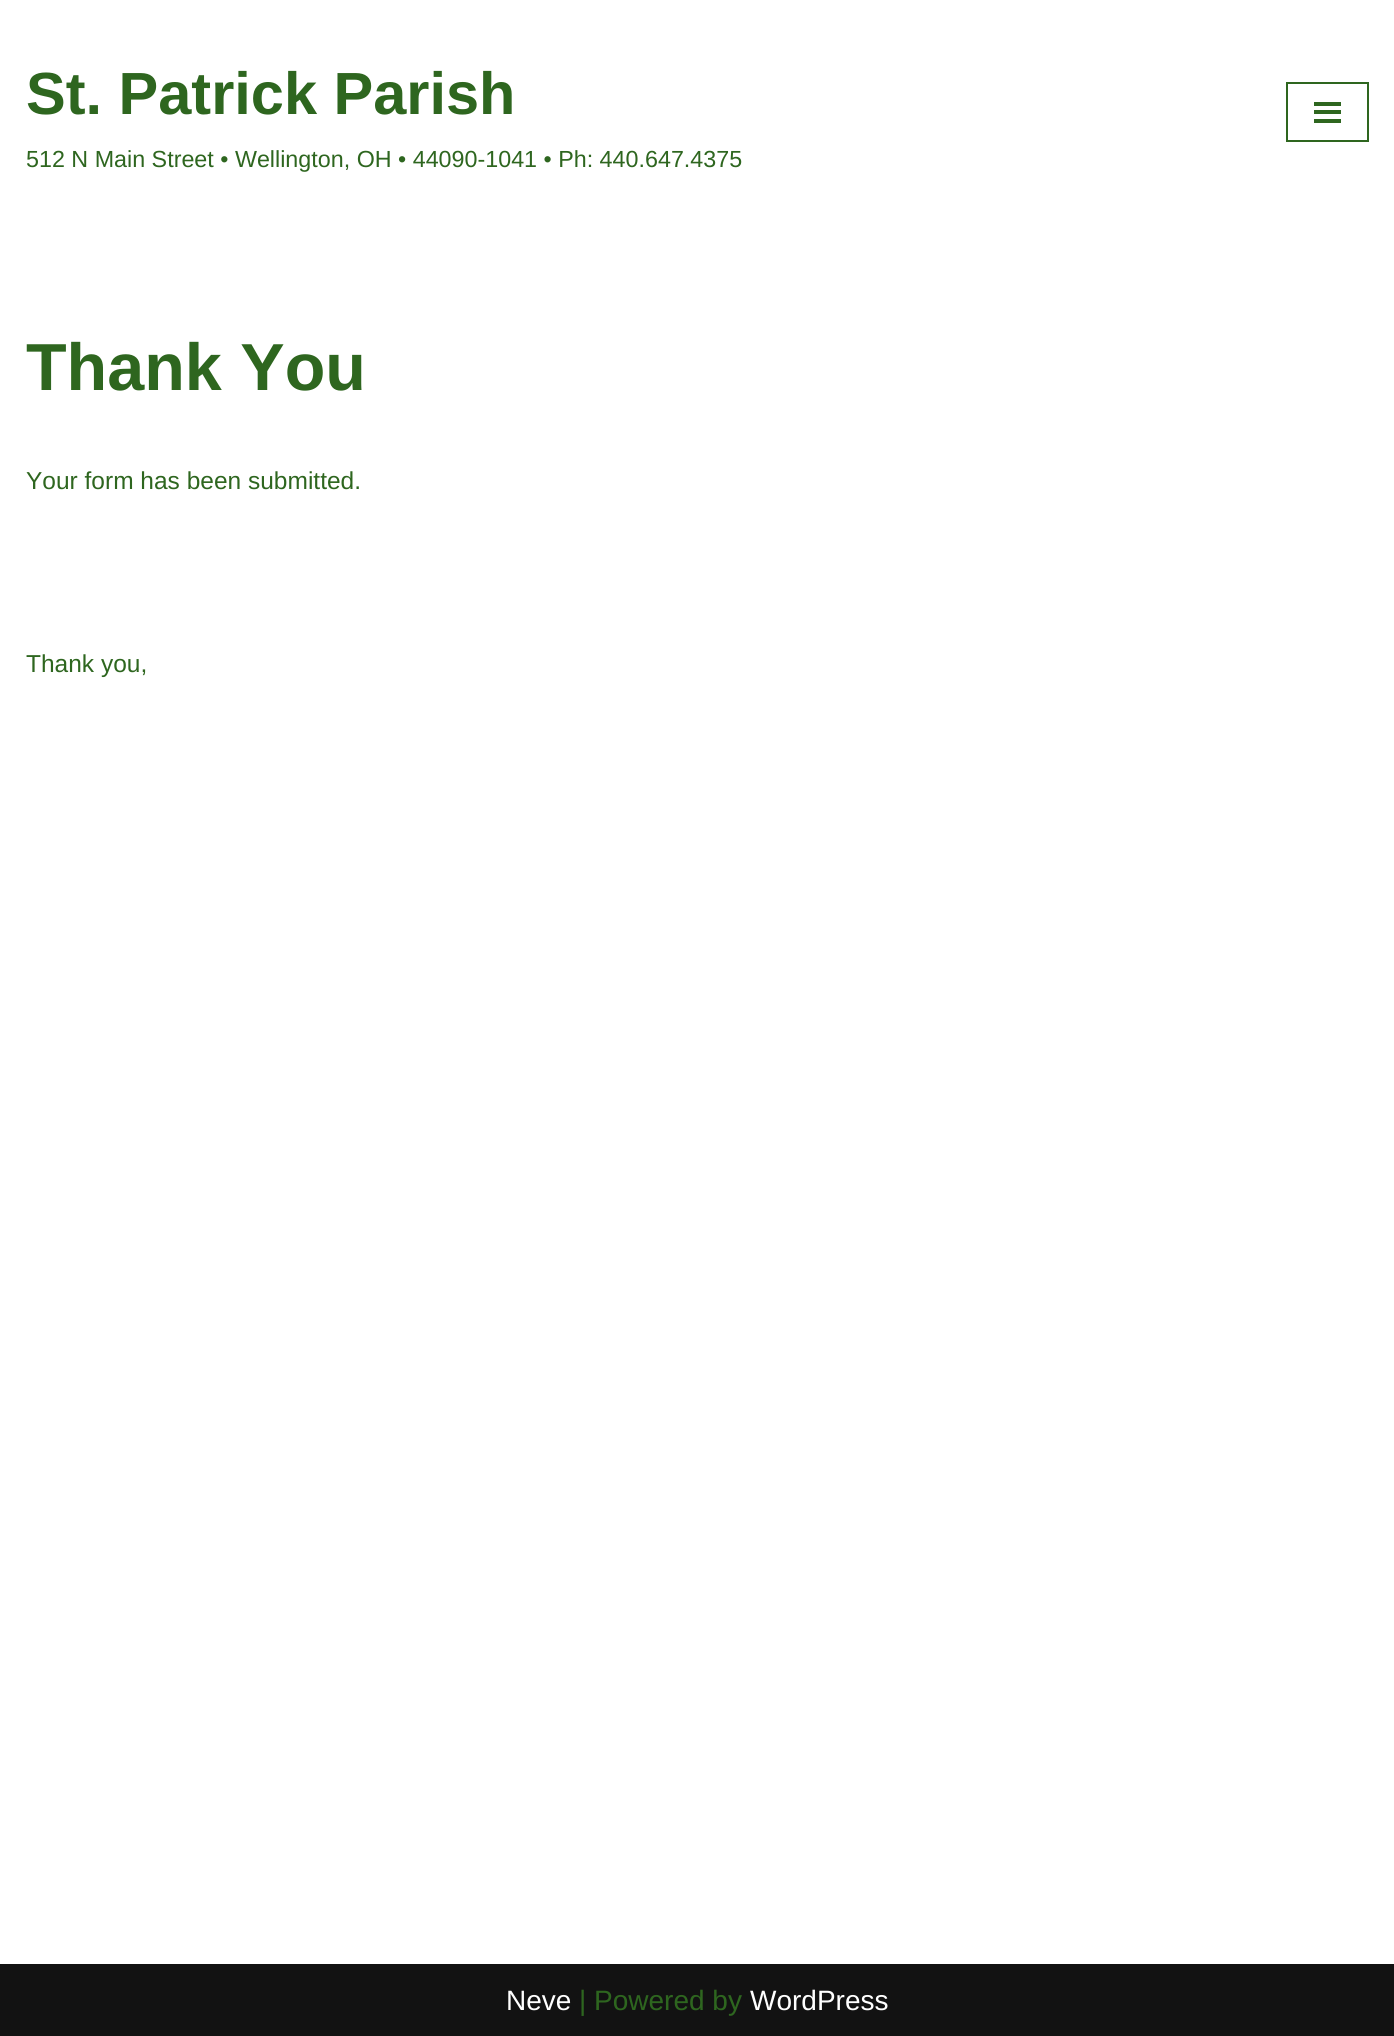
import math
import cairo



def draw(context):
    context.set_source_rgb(1, 1, 1)
    context.paint()
    context.rectangle(1287, 83, 81, 58)
    context.set_source_rgb(46 / 255, 102 / 255, 31 / 255)
    context.stroke()
    context.rectangle(1314, 102, 27, 4)
    context.fill()
    context.rectangle(1314, 110, 27, 4)
    context.fill()
    context.rectangle(1314, 119, 27, 4)
    context.fill()
    context.set_source_rgb(18 / 255, 18 / 255, 18 / 255)
    context.rectangle(0, 1964, 1394, 72)
    context.fill()
    context.select_font_face("Liberation Sans", cairo.FontSlant.NORMAL, cairo.FontWeight.BOLD)
    context.set_font_size(59.5)
    context.set_source_rgb(46 / 255, 102 / 255, 31 / 255)
    context.move_to(26, 114)
    context.show_text("St. Patrick Parish")
    context.select_font_face("Liberation Sans")
    context.set_font_size(23.3)
    context.move_to(26, 167)
    context.show_text("512 N Main Street • Wellington, OH • 44090-1041 • Ph: 440.647.4375")
    context.select_font_face("Liberation Sans", cairo.FontSlant.NORMAL, cairo.FontWeight.BOLD)
    context.set_font_size(66.5)
    context.move_to(26, 390)
    context.show_text("Thank You")
    context.select_font_face("Liberation Sans")
    context.set_font_size(24.5)
    context.move_to(26, 489)
    context.show_text("Your form has been submitted.")
    context.move_to(26, 672)
    context.show_text("Thank you,")
    context.set_font_size(28)
    context.set_source_rgb(1, 1, 1)
    context.move_to(506, 2010)
    context.show_text("Neve")
    context.set_source_rgb(46 / 255, 102 / 255, 31 / 255)
    context.move_to(579, 2010)
    context.show_text("| Powered by")
    context.set_source_rgb(1, 1, 1)
    context.move_to(750, 2010)
    context.show_text("WordPress")


surface = cairo.ImageSurface(cairo.Format.RGB24, 1394, 2036)
context = cairo.Context(surface)
options = cairo.FontOptions()
options.set_hint_metrics(cairo.HintMetrics.OFF)
options.set_hint_style(cairo.HintStyle.NONE)
context.set_font_options(options)
context.set_miter_limit(4)
draw(context)
surface.write_to_png("out.png")
